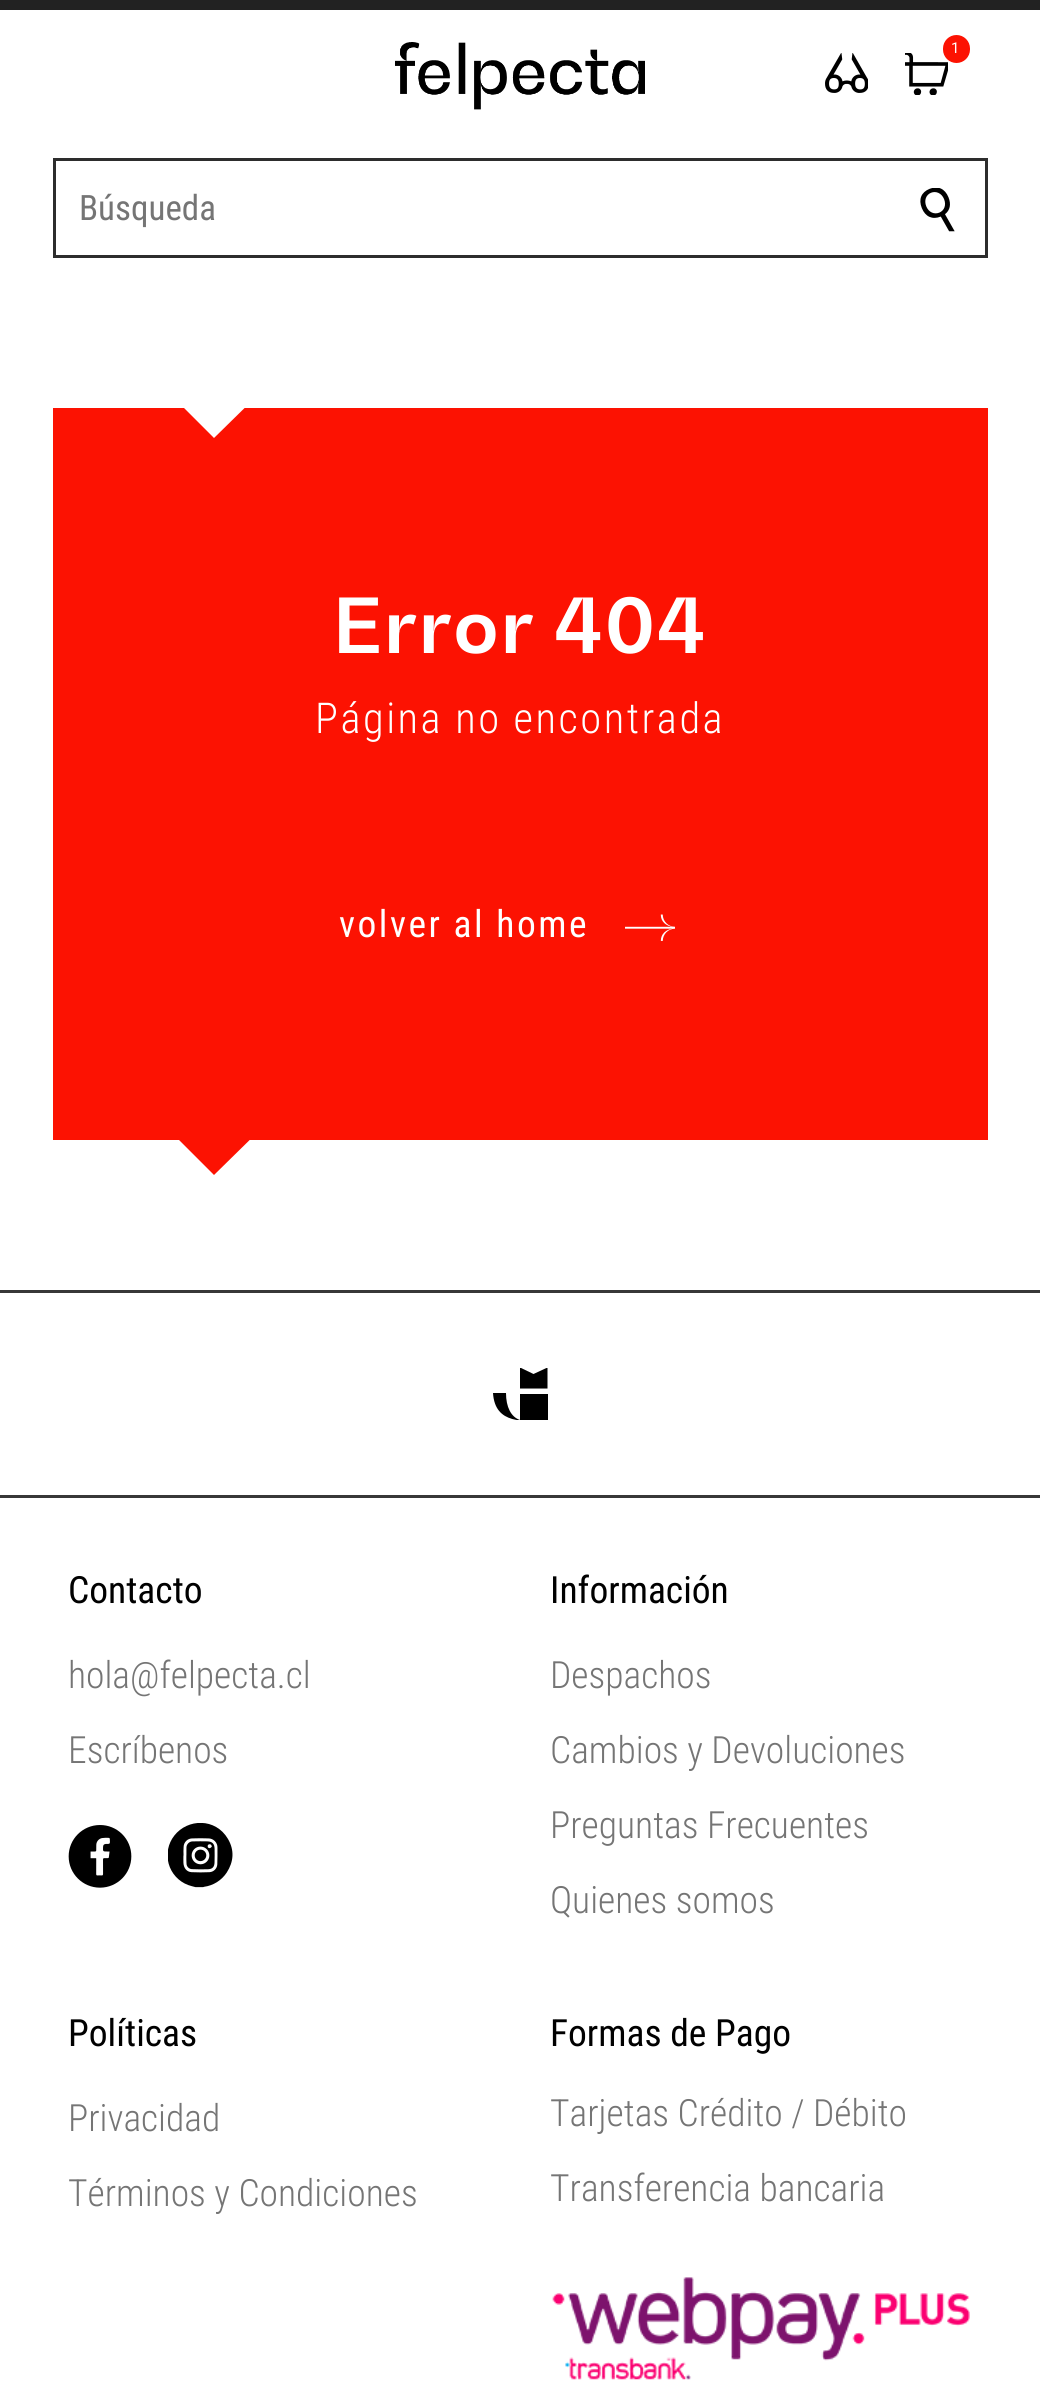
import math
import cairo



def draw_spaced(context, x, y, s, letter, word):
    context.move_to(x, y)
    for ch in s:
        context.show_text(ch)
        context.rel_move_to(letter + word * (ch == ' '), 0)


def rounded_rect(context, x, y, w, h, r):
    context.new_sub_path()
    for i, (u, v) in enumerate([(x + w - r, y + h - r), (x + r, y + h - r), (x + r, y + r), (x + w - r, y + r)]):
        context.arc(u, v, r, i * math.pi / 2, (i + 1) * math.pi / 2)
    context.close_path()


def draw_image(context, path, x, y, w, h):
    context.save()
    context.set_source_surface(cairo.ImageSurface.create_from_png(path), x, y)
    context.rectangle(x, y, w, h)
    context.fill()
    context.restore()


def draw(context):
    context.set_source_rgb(1, 1, 1)
    context.paint()
    context.set_source_rgb(34 / 255, 34 / 255, 34 / 255)
    context.rectangle(0, 0, 1040, 10)
    context.fill()
    draw_image(context, "images/1.png", 395, 42, 250, 68)
    draw_image(context, "images/2.png", 905, 53, 43, 42)
    context.set_source_rgb(252 / 255, 18 / 255, 2 / 255)
    rounded_rect(context, 943, 35, 27, 28, 13.5)
    context.fill()
    draw_image(context, "images/3.png", 825, 53, 43, 40)
    context.rectangle(54.5, 159.5, 932, 97)
    context.set_source_rgb(45 / 255, 45 / 255, 45 / 255)
    context.set_line_width(3)
    context.stroke()
    draw_image(context, "images/4.png", 920, 188, 35, 44)
    context.set_source_rgb(252 / 255, 18 / 255, 2 / 255)
    context.rectangle(53, 408, 935, 732)
    context.fill()
    context.set_source_rgb(1, 1, 1)
    context.new_path()
    context.move_to(214, 438)
    context.line_to(161, 385)
    context.line_to(214, 332)
    context.line_to(268, 385)
    context.close_path()
    context.fill()
    draw_image(context, "images/5.png", 625, 914, 50, 27)
    context.set_source_rgb(252 / 255, 18 / 255, 2 / 255)
    context.new_path()
    context.move_to(214, 1175)
    context.line_to(161, 1122)
    context.line_to(214, 1069)
    context.line_to(268, 1122)
    context.close_path()
    context.fill()
    context.set_source_rgb(56 / 255, 56 / 255, 56 / 255)
    context.rectangle(0, 1290, 1040, 3)
    context.fill()
    context.rectangle(0, 1495, 1040, 3)
    context.fill()
    context.save()
    context.rectangle(493, 1368, 55, 52)
    context.clip()
    context.set_source_rgb(0, 0, 0)
    context.new_path()
    context.move_to(547.5, 1367.5)
    context.line_to(533.5, 1374)
    context.line_to(520, 1367.5)
    context.line_to(520, 1388.5)
    context.line_to(547.5, 1388.5)
    context.close_path()
    context.move_to(520, 1420)
    context.line_to(520, 1394)
    context.line_to(548, 1394)
    context.line_to(548, 1421)
    context.curve_to(524, 1421, 495, 1425, 493, 1393)
    context.line_to(506, 1393)
    context.curve_to(506, 1407, 511, 1417, 520, 1420)
    context.fill()
    context.restore()
    draw_image(context, "images/6.png", 68, 1825, 64, 63)
    draw_image(context, "images/7.png", 168, 1823, 65, 65)
    draw_image(context, "images/8.png", 552, 2277, 418, 103)
    context.select_font_face("Roboto")
    context.set_font_size(15)
    context.set_source_rgb(1, 1, 1)
    draw_spaced(context, 951, 53, "1", 1, 0)
    context.select_font_face("Roboto Condensed")
    context.set_font_size(35)
    context.set_source_rgb(117 / 255, 117 / 255, 117 / 255)
    context.move_to(79, 220)
    context.show_text("Búsqueda")
    context.select_font_face("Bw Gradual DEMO", cairo.FontSlant.NORMAL, cairo.FontWeight.BOLD)
    context.set_font_size(75)
    context.set_source_rgb(1, 1, 1)
    draw_spaced(context, 333, 653, "Error 404", 2.5, 0)
    context.select_font_face("Roboto Condensed Light")
    context.set_font_size(42.5)
    draw_spaced(context, 315, 733, "Página no encontrada", 2.5, 0)
    context.select_font_face("Roboto Condensed")
    context.set_font_size(37.5)
    draw_spaced(context, 339, 937, "volver al home", 2.5, 0)
    context.set_source_rgb(0, 0, 0)
    context.move_to(68, 1603)
    context.show_text("Contacto")
    context.select_font_face("Roboto Condensed Light")
    context.set_source_rgb(117 / 255, 117 / 255, 117 / 255)
    context.move_to(68, 1688)
    context.show_text("hola@felpecta.cl")
    context.move_to(68, 1763)
    context.show_text("Escríbenos")
    context.select_font_face("Roboto Condensed")
    context.set_source_rgb(0, 0, 0)
    context.move_to(550, 1603)
    context.show_text("Información")
    context.select_font_face("Roboto Condensed Light")
    context.set_source_rgb(117 / 255, 117 / 255, 117 / 255)
    context.move_to(550, 1688)
    context.show_text("Despachos")
    context.move_to(550, 1763)
    context.show_text("Cambios y Devoluciones")
    context.move_to(550, 1838)
    context.show_text("Preguntas Frecuentes")
    context.move_to(550, 1913)
    context.show_text("Quienes somos")
    context.select_font_face("Roboto Condensed")
    context.set_source_rgb(0, 0, 0)
    context.move_to(68, 2046)
    context.show_text("Políticas")
    context.select_font_face("Roboto Condensed Light")
    context.set_source_rgb(117 / 255, 117 / 255, 117 / 255)
    context.move_to(68, 2131)
    context.show_text("Privacidad")
    context.move_to(68, 2206)
    context.show_text("Términos y Condiciones")
    context.select_font_face("Roboto Condensed")
    context.set_source_rgb(0, 0, 0)
    context.move_to(550, 2046)
    context.show_text("Formas de Pago")
    context.select_font_face("Roboto Condensed Light")
    context.set_source_rgb(117 / 255, 117 / 255, 117 / 255)
    context.move_to(550, 2126)
    context.show_text("Tarjetas Crédito / Débito")
    context.move_to(550, 2201)
    context.show_text("Transferencia bancaria")


surface = cairo.ImageSurface(cairo.Format.RGB24, 1040, 2393)
context = cairo.Context(surface)
options = cairo.FontOptions()
options.set_hint_metrics(cairo.HintMetrics.OFF)
options.set_hint_style(cairo.HintStyle.NONE)
context.set_font_options(options)
context.set_miter_limit(4)
draw(context)
surface.write_to_png("out.png")
